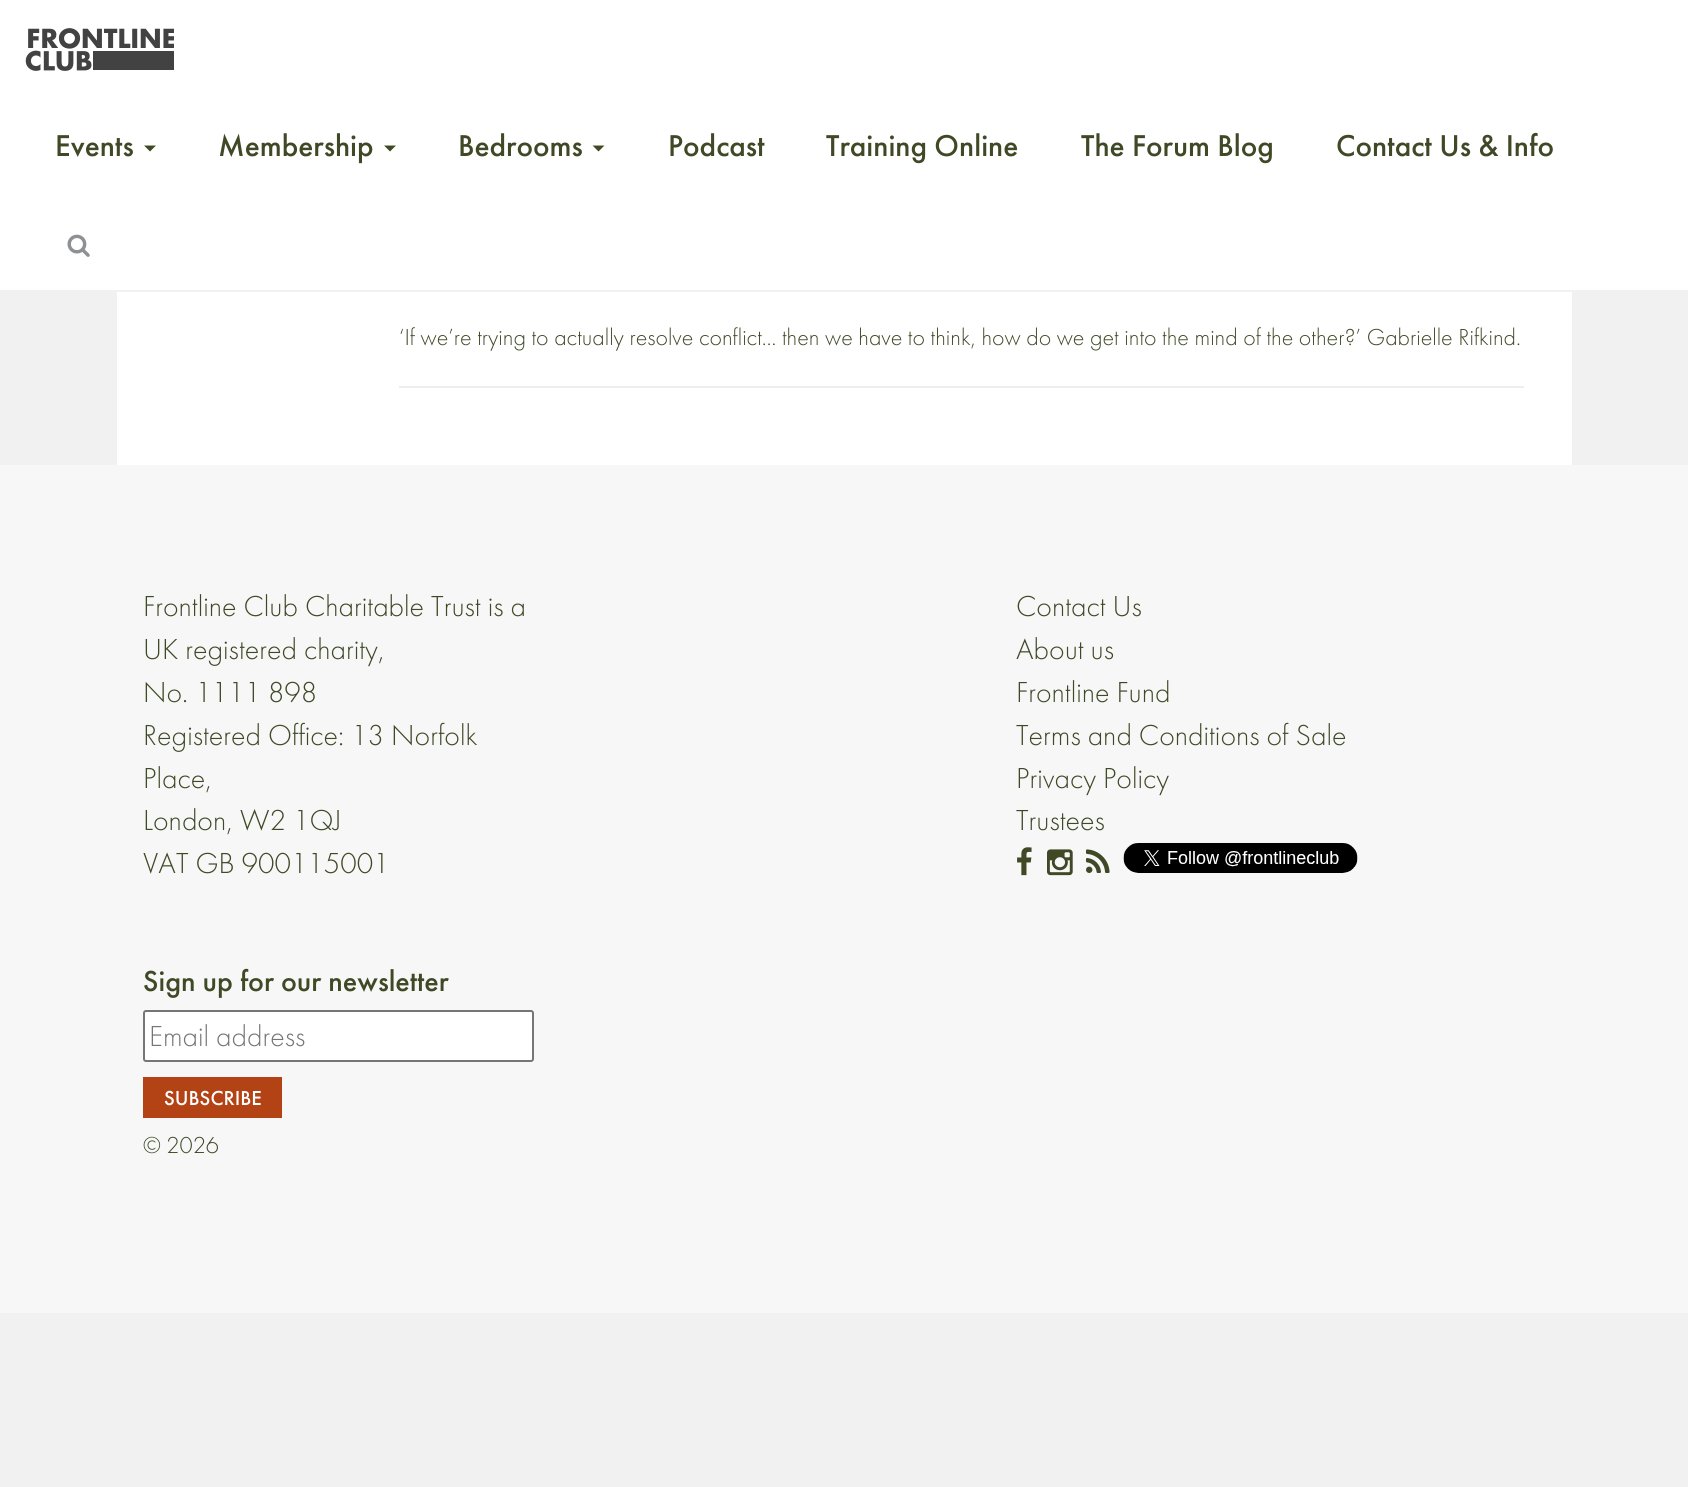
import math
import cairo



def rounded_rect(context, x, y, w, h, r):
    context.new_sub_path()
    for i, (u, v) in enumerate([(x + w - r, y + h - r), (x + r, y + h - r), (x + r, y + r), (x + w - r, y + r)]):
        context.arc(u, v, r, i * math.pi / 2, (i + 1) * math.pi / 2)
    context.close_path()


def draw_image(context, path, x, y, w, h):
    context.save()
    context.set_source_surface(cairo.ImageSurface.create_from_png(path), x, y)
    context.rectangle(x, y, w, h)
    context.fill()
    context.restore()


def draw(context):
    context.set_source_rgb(241 / 255, 241 / 255, 241 / 255)
    context.paint()
    context.set_source_rgb(1, 1, 1)
    context.rectangle(0, 0, 1688, 290)
    context.fill()
    draw_image(context, "images/1.png", 25, 28, 149, 43)
    context.set_source_rgb(63 / 255, 73 / 255, 38 / 255)
    context.new_path()
    context.move_to(144, 145.5)
    context.line_to(156, 145.5)
    context.line_to(150, 151.5)
    context.close_path()
    context.fill()
    context.new_path()
    context.move_to(384, 145.5)
    context.line_to(396, 145.5)
    context.line_to(390, 151.5)
    context.close_path()
    context.fill()
    context.new_path()
    context.move_to(592.5, 145.5)
    context.line_to(604.5, 145.5)
    context.line_to(598.5, 151.5)
    context.close_path()
    context.fill()
    draw_image(context, "images/2.png", 67, 234, 23, 23)
    context.set_source_rgb(1, 1, 1)
    context.rectangle(117, 292, 1455, 173)
    context.fill()
    context.set_source_rgb(238 / 255, 238 / 255, 238 / 255)
    context.rectangle(399, 386, 1125, 2)
    context.fill()
    context.set_source_rgb(247 / 255, 247 / 255, 247 / 255)
    context.rectangle(0, 465, 1688, 848)
    context.fill()
    draw_image(context, "images/3.png", 1017, 847, 15, 29)
    draw_image(context, "images/4.png", 1047, 849, 26, 27)
    draw_image(context, "images/5.png", 1086, 849, 24, 24)
    draw_image(context, "images/6.png", 1123, 843, 235, 30)
    context.set_source_rgb(1, 1, 1)
    rounded_rect(context, 144, 1011, 389, 50, 2)
    context.fill_preserve()
    context.set_source_rgb(118 / 255, 118 / 255, 118 / 255)
    context.stroke()
    context.set_source_rgb(179 / 255, 66 / 255, 21 / 255)
    context.rectangle(143, 1077, 139, 41)
    context.fill()
    context.select_font_face("Futura PT Medium")
    context.set_font_size(31.25)
    context.set_source_rgb(63 / 255, 73 / 255, 38 / 255)
    context.move_to(55, 156)
    context.show_text("Events")
    context.move_to(218, 156)
    context.show_text("Membership")
    context.move_to(458, 156)
    context.show_text("Bedrooms")
    context.move_to(668, 156)
    context.show_text("Podcast")
    context.move_to(826, 156)
    context.show_text("Training Online")
    context.move_to(1081, 156)
    context.show_text("The Forum Blog")
    context.move_to(1336, 156)
    context.show_text("Contact Us & Info")
    context.select_font_face("Futura PT Light")
    context.set_font_size(24)
    context.move_to(399, 345)
    context.show_text("‘If we’re trying to actually resolve conflict… then we have to think, how do we get into the mind of the other?’ Gabrielle Rifkind.")
    context.set_font_size(30)
    context.move_to(143, 616)
    context.show_text("Frontline Club Charitable Trust is a")
    context.move_to(143, 659)
    context.show_text("UK registered charity,")
    context.move_to(143, 702)
    context.show_text("No. 1111 898")
    context.move_to(143, 745)
    context.show_text("Registered Office: 13 Norfolk")
    context.move_to(143, 788)
    context.show_text("Place,")
    context.move_to(143, 830)
    context.show_text("London, W2 1QJ")
    context.move_to(143, 873)
    context.show_text("VAT GB 900115001")
    context.move_to(1016, 616)
    context.show_text("Contact Us")
    context.move_to(1016, 659)
    context.show_text("About us")
    context.move_to(1016, 702)
    context.show_text("Frontline Fund")
    context.move_to(1016, 745)
    context.show_text("Terms and Conditions of Sale")
    context.move_to(1016, 788)
    context.show_text("Privacy Policy")
    context.move_to(1016, 830)
    context.show_text("Trustees")
    context.select_font_face("Futura PT Medium")
    context.move_to(143, 991)
    context.show_text("Sign up for our newsletter")
    context.select_font_face("Futura PT Light")
    context.set_source_rgb(117 / 255, 117 / 255, 117 / 255)
    context.move_to(149, 1046)
    context.show_text("Email address")
    context.select_font_face("Futura PT Medium")
    context.set_font_size(21)
    context.set_source_rgb(1, 1, 1)
    context.move_to(164, 1105)
    context.show_text("SUBSCRIBE")
    context.select_font_face("Futura PT Light")
    context.set_font_size(24)
    context.set_source_rgb(63 / 255, 73 / 255, 38 / 255)
    context.move_to(143, 1153)
    context.show_text("© 2026")


surface = cairo.ImageSurface(cairo.Format.RGB24, 1688, 1487)
context = cairo.Context(surface)
options = cairo.FontOptions()
options.set_hint_metrics(cairo.HintMetrics.OFF)
options.set_hint_style(cairo.HintStyle.NONE)
context.set_font_options(options)
context.set_miter_limit(4)
draw(context)
surface.write_to_png("out.png")
